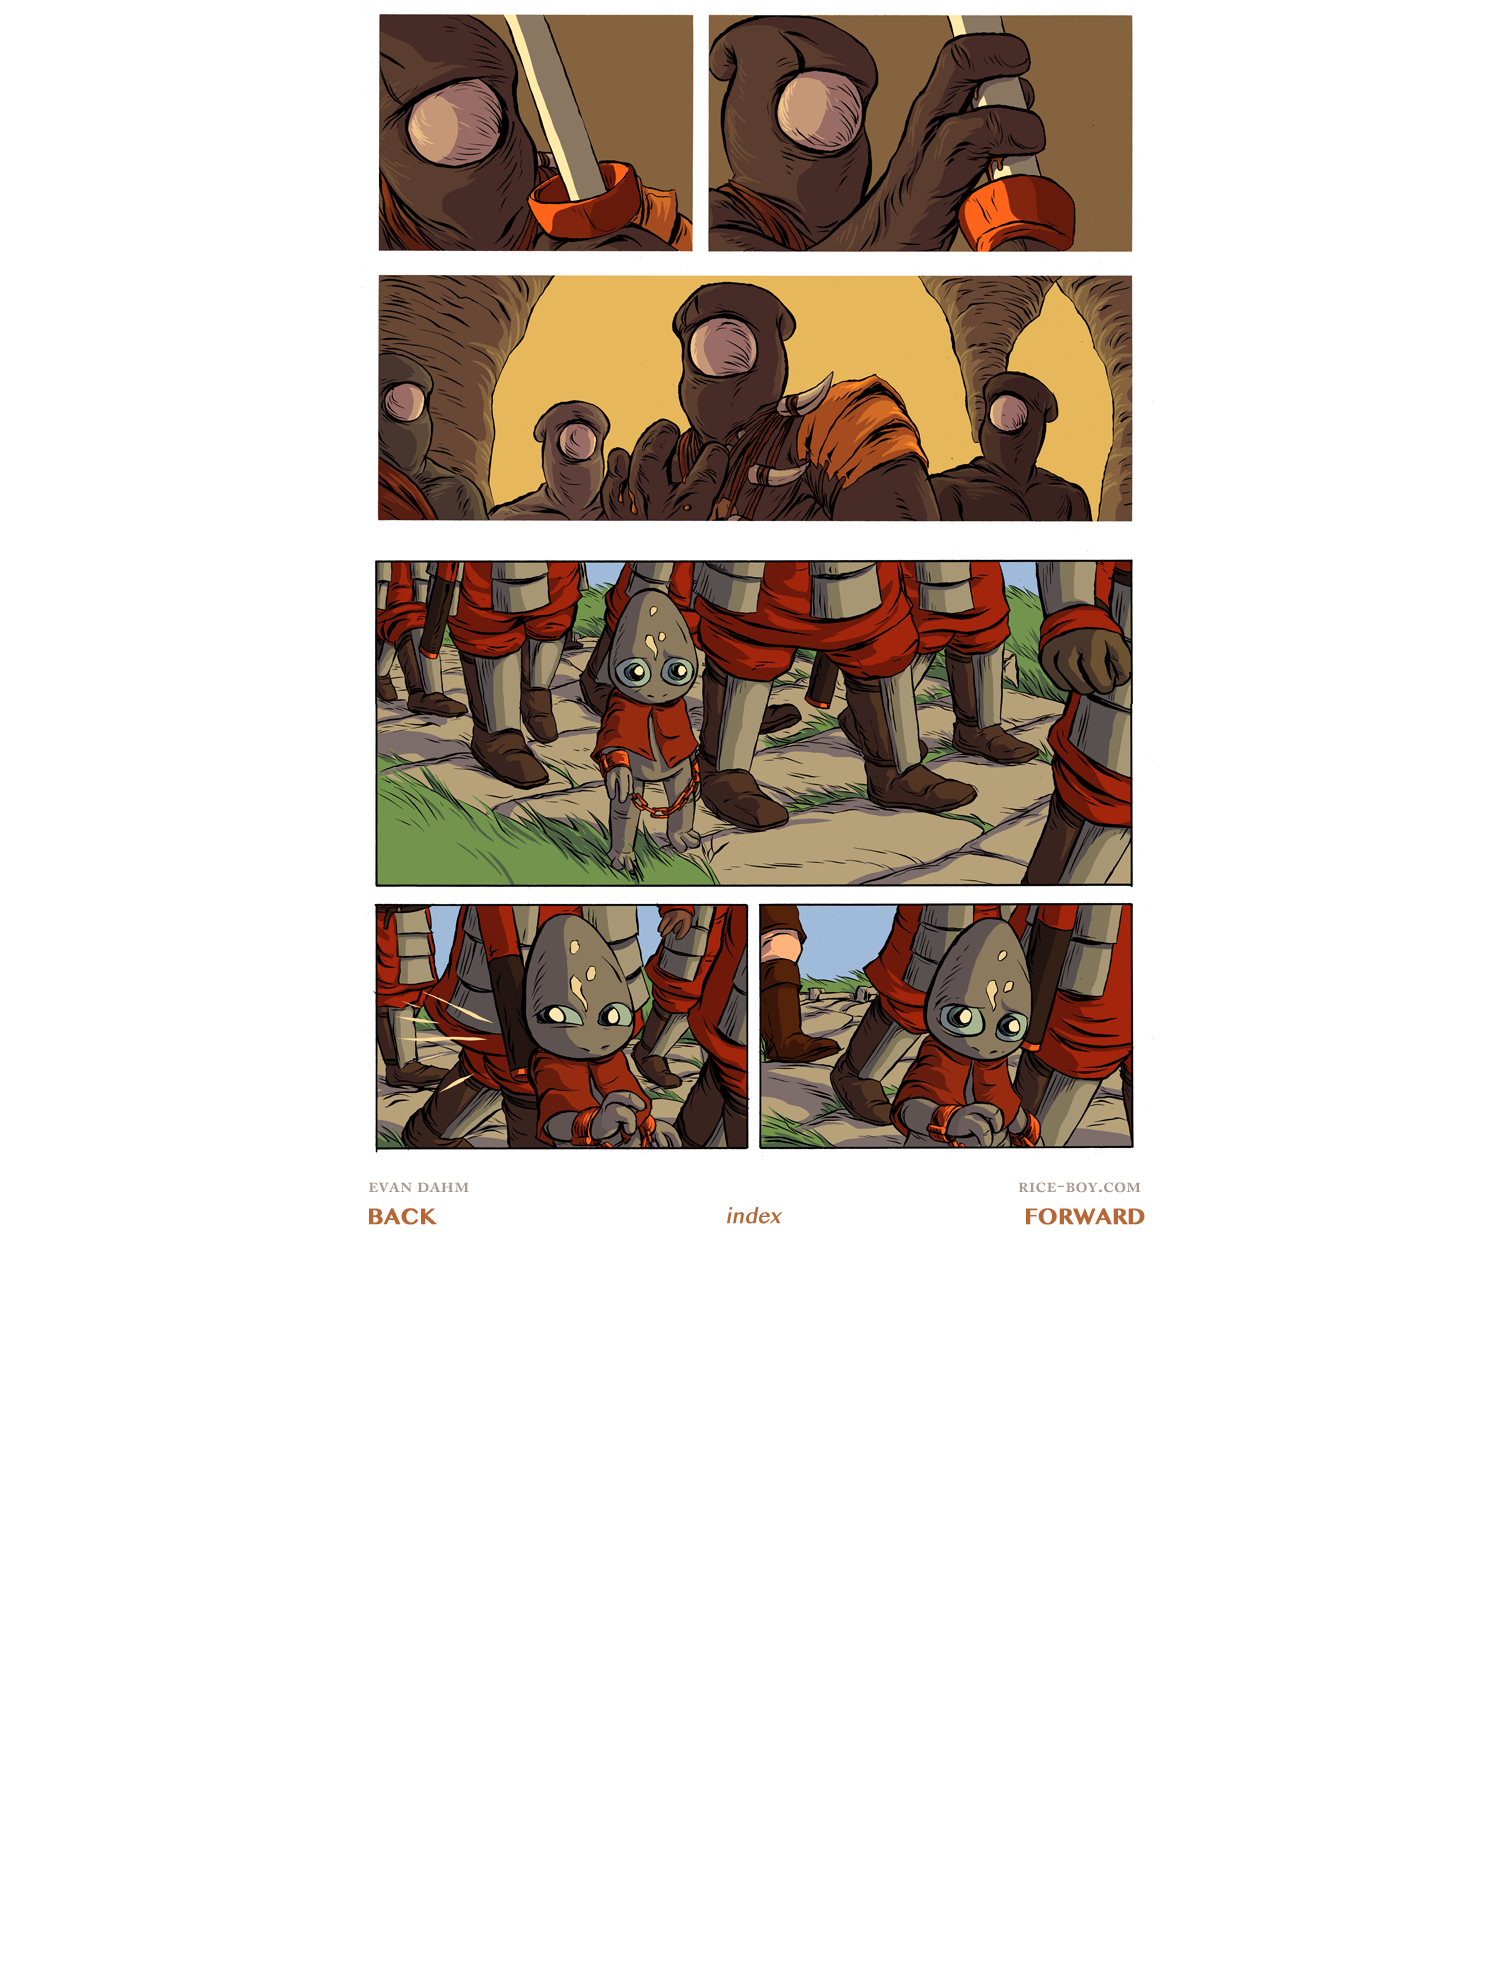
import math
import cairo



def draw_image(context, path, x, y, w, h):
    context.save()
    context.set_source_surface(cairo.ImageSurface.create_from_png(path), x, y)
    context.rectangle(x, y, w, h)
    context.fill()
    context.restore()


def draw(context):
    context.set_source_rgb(1, 1, 1)
    context.paint()
    draw_image(context, "images/1.png", 362, 0, 792, 1193)
    draw_image(context, "images/2.png", 369, 1208, 68, 17)
    draw_image(context, "images/3.png", 727, 1207, 55, 17)
    draw_image(context, "images/4.png", 1026, 1208, 119, 17)


surface = cairo.ImageSurface(cairo.Format.RGB24, 1510, 1969)
context = cairo.Context(surface)
options = cairo.FontOptions()
options.set_hint_metrics(cairo.HintMetrics.OFF)
options.set_hint_style(cairo.HintStyle.NONE)
context.set_font_options(options)
context.set_miter_limit(4)
draw(context)
surface.write_to_png("out.png")
